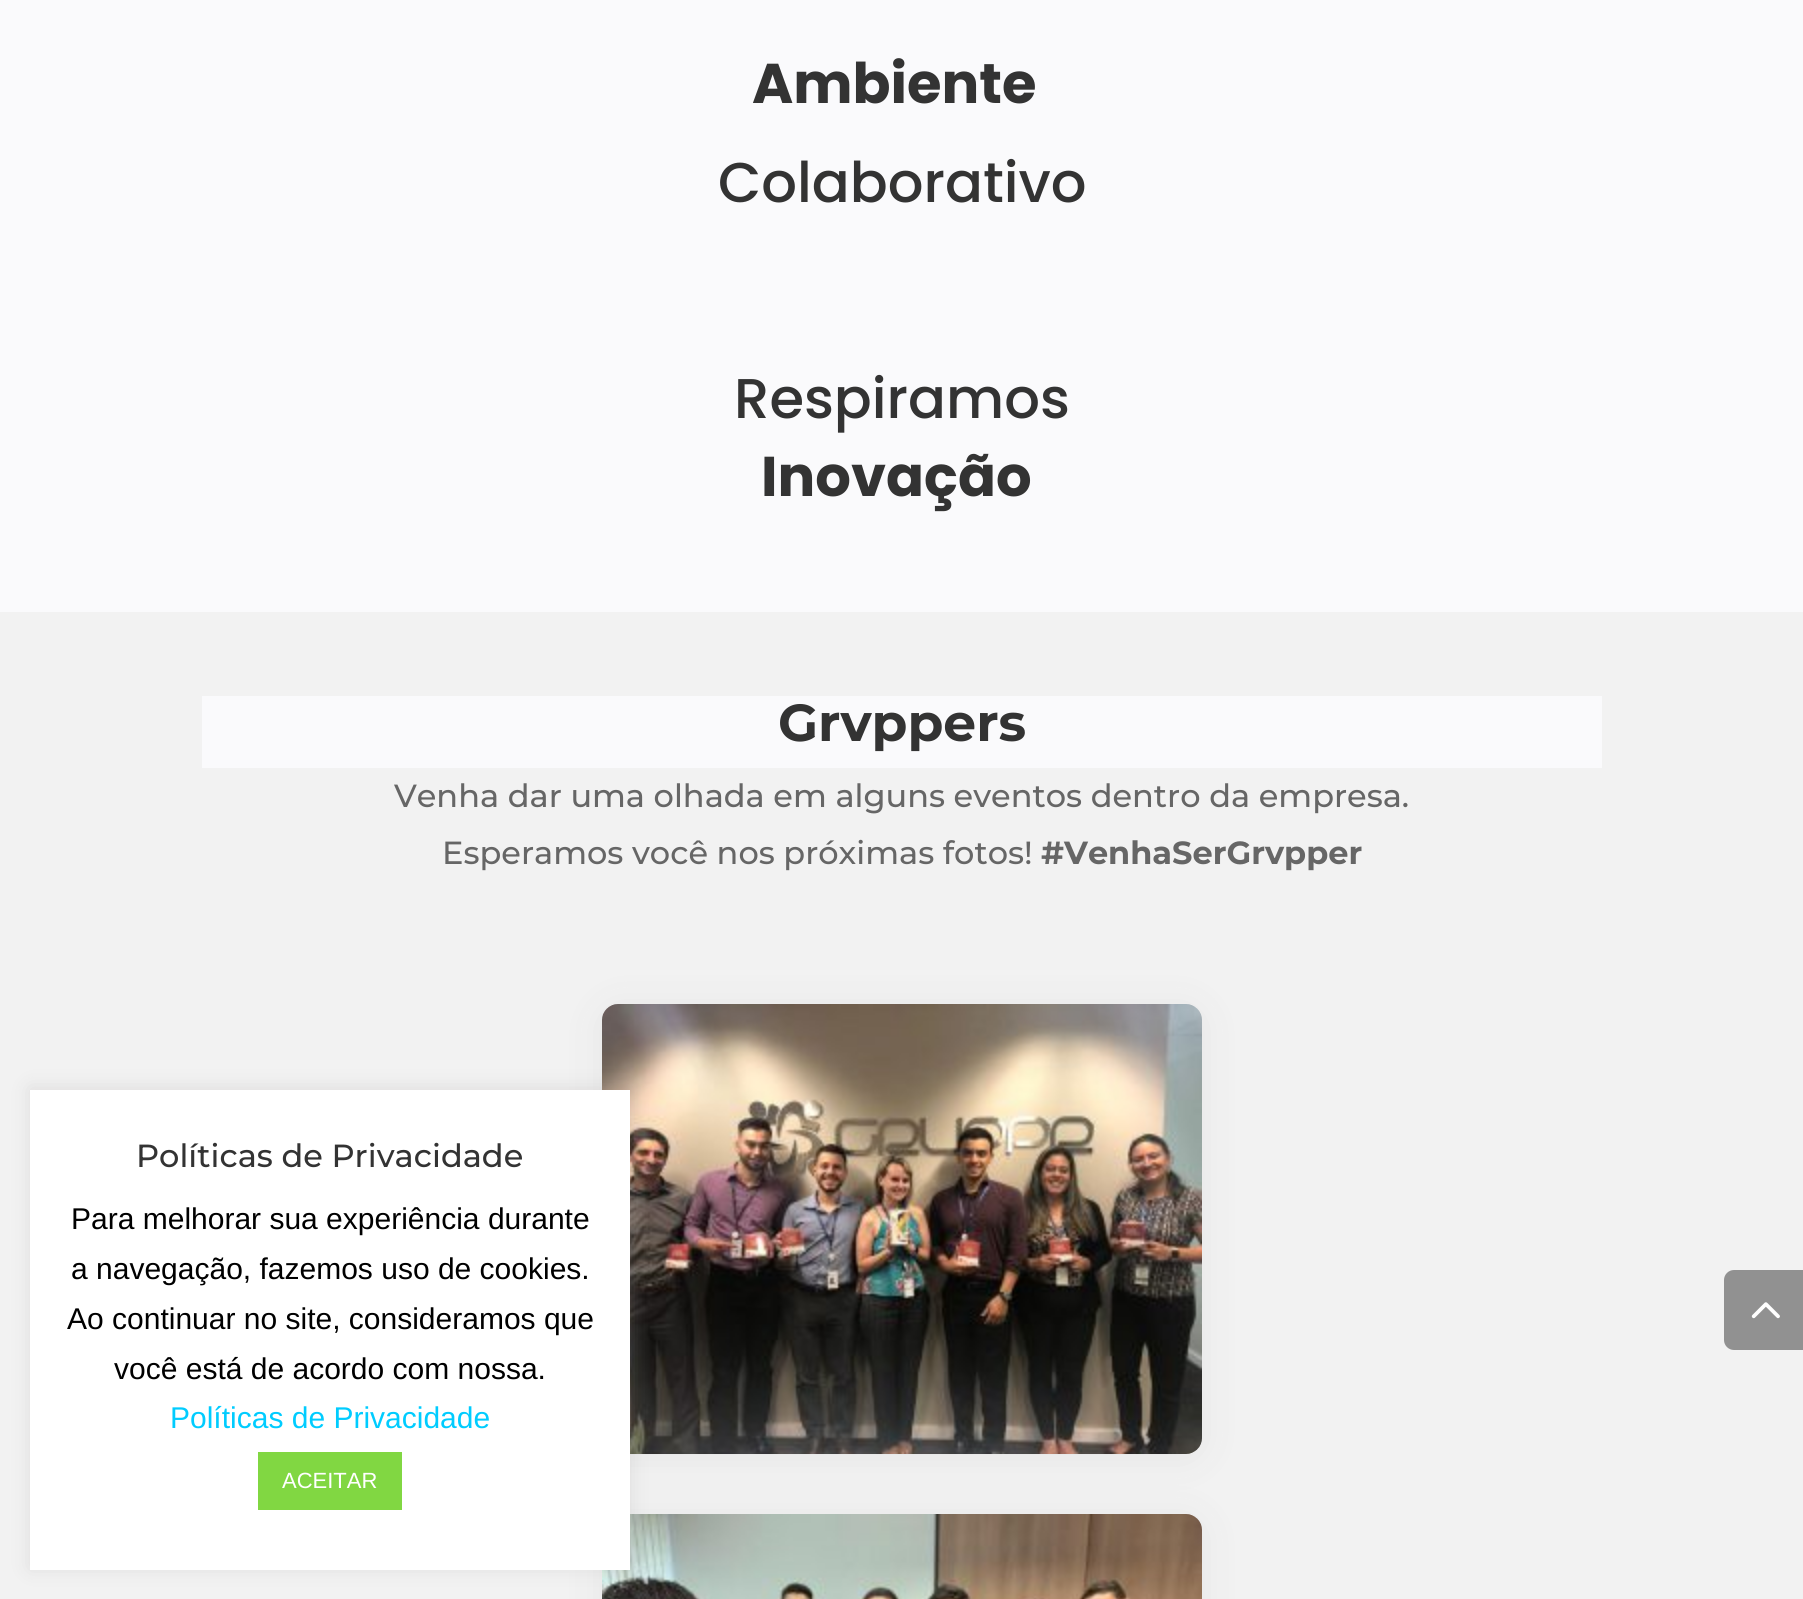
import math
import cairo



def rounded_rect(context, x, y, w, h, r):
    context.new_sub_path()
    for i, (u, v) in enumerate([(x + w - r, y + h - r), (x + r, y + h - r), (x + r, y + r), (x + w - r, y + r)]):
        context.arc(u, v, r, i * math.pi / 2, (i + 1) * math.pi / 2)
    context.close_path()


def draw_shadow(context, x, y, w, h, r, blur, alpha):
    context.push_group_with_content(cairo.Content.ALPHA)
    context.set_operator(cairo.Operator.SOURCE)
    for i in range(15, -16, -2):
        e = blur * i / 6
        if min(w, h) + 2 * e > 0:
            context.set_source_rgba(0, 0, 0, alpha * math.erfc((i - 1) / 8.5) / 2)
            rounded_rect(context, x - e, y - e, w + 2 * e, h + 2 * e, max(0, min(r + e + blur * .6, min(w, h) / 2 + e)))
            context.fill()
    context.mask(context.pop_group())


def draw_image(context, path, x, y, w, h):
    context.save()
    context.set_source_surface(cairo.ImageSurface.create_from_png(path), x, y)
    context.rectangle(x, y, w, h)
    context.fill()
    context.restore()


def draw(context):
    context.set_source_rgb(250 / 255, 250 / 255, 252 / 255)
    context.paint()
    context.set_source_rgb(242 / 255, 242 / 255, 242 / 255)
    context.rectangle(0, 612, 1803, 987)
    context.fill()
    context.set_source_rgb(250 / 255, 250 / 255, 252 / 255)
    context.rectangle(202, 696, 1400, 72)
    context.fill()
    context.set_source_rgb(198 / 255, 198 / 255, 198 / 255)
    draw_shadow(context, 602, 1008, 600, 450, 16, 18, 0.3)
    draw_image(context, "images/1.png", 602, 1004, 600, 450)
    draw_shadow(context, 602, 1518, 600, 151, 16, 18, 0.3)
    draw_image(context, "images/2.png", 602, 1514, 600, 85)
    context.set_source_rgb(145 / 255, 145 / 255, 145 / 255)
    context.new_path()
    context.move_to(1734, 1270)
    context.line_to(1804, 1270)
    context.line_to(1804, 1350)
    context.line_to(1734, 1350)
    context.curve_to(1728.5, 1350, 1724, 1345.5, 1724, 1340)
    context.line_to(1724, 1280)
    context.curve_to(1724, 1274.5, 1728.5, 1270, 1734, 1270)
    context.close_path()
    context.fill()
    draw_image(context, "images/3.png", 1751, 1302, 29, 17)
    context.set_source_rgb(172 / 255, 171 / 255, 171 / 255)
    draw_shadow(context, 30, 1088, 600, 480, 0, 10, 0.3)
    context.set_source_rgb(1, 1, 1)
    context.rectangle(30, 1090, 600, 480)
    context.fill()
    context.set_source_rgb(129 / 255, 215 / 255, 66 / 255)
    context.rectangle(258, 1452, 144, 58)
    context.fill()
    context.select_font_face("Poppins", cairo.FontSlant.NORMAL, cairo.FontWeight.BOLD)
    context.set_font_size(56)
    context.set_source_rgb(51 / 255, 51 / 255, 51 / 255)
    context.move_to(752, 103)
    context.show_text("Ambiente")
    context.select_font_face("Poppins Medium")
    context.move_to(718, 202)
    context.show_text("Colaborativo")
    context.move_to(734, 418)
    context.show_text("Respiramos")
    context.select_font_face("Poppins", cairo.FontSlant.NORMAL, cairo.FontWeight.BOLD)
    context.move_to(761, 496)
    context.show_text("Inovação")
    context.select_font_face("Montserrat Thin")
    context.set_font_size(52)
    context.move_to(778, 741)
    context.show_text("Grvppers")
    context.select_font_face("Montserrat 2 Thin")
    context.set_font_size(32)
    context.set_source_rgb(102 / 255, 102 / 255, 102 / 255)
    context.move_to(394, 807)
    context.show_text("Venha dar uma olhada em alguns eventos dentro da empresa.")
    context.move_to(442, 864)
    context.show_text("Esperamos você nos próximas fotos!")
    context.select_font_face("Montserrat Thin")
    context.move_to(1041, 864)
    context.show_text("#VenhaSerGrvpper")
    context.select_font_face("Montserrat 2 Thin")
    context.set_source_rgb(51 / 255, 51 / 255, 51 / 255)
    context.move_to(136, 1167)
    context.show_text("Políticas de Privacidade")
    context.select_font_face("Liberation Sans")
    context.set_font_size(30)
    context.set_source_rgb(0, 0, 0)
    context.move_to(71, 1229)
    context.show_text("Para melhorar sua experiência durante")
    context.move_to(71, 1279)
    context.show_text("a navegação, fazemos uso de cookies.")
    context.move_to(67, 1329)
    context.show_text("Ao continuar no site, consideramos que")
    context.move_to(114, 1379)
    context.show_text("você está de acordo com nossa.")
    context.set_source_rgb(0, 204 / 255, 1)
    context.move_to(170, 1428)
    context.show_text("Políticas de Privacidade")
    context.set_font_size(22)
    context.set_source_rgb(1, 1, 1)
    context.move_to(282, 1488)
    context.show_text("ACEITAR")


surface = cairo.ImageSurface(cairo.Format.RGB24, 1803, 1599)
context = cairo.Context(surface)
options = cairo.FontOptions()
options.set_hint_metrics(cairo.HintMetrics.OFF)
options.set_hint_style(cairo.HintStyle.NONE)
context.set_font_options(options)
context.set_miter_limit(4)
draw(context)
surface.write_to_png("out.png")
